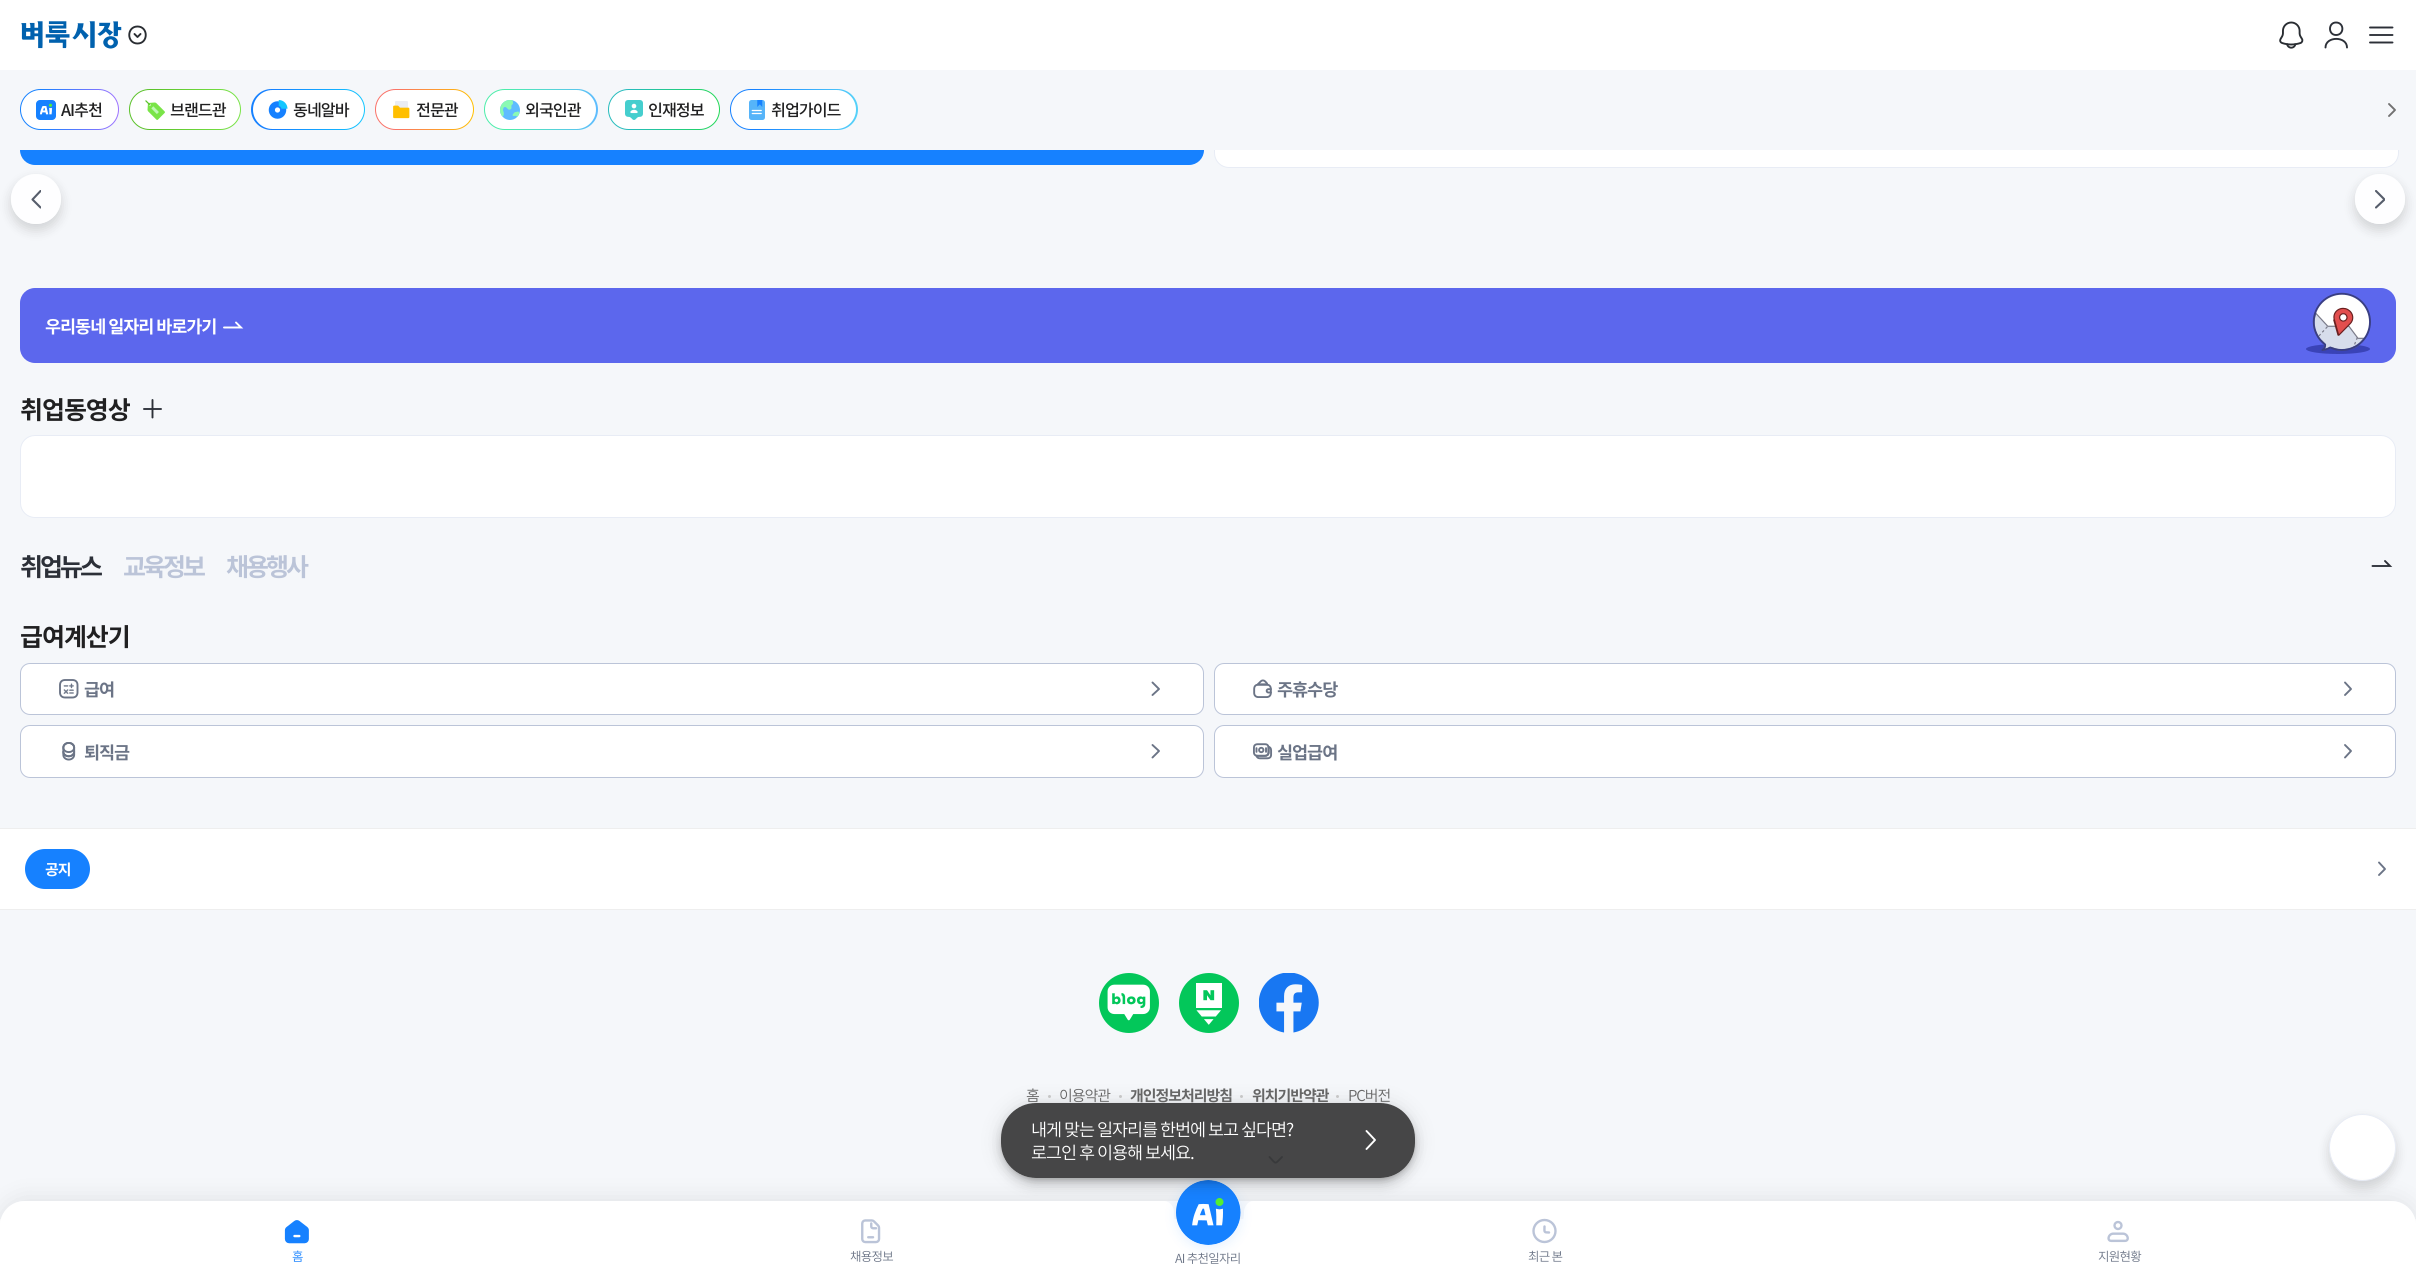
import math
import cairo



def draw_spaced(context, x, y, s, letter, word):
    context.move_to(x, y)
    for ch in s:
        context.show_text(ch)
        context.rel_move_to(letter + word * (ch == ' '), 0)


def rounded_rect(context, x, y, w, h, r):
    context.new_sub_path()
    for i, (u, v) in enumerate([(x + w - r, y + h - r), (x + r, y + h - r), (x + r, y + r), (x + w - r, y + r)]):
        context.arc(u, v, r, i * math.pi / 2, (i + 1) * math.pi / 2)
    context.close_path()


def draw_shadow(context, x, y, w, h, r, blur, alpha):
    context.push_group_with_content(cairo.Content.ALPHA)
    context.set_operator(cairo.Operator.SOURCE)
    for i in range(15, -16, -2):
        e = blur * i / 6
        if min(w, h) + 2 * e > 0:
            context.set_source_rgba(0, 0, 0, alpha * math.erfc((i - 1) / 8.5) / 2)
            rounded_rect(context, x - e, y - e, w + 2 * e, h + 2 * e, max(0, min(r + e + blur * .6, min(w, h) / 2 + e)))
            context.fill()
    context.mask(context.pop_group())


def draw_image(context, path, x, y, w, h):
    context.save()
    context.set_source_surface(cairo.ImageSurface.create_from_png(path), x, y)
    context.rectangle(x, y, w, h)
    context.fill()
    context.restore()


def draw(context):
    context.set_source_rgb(1, 1, 1)
    context.paint()
    context.set_source_rgb(245 / 255, 247 / 255, 250 / 255)
    context.rectangle(0, 150, 2416, 678)
    context.fill()
    context.save()
    context.set_fill_rule(cairo.FillRule.EVEN_ODD)
    context.new_path()
    context.move_to(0, 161)
    context.line_to(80, 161)
    context.line_to(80, 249)
    context.line_to(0, 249)
    context.close_path()
    context.move_to(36, 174)
    context.curve_to(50, 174, 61, 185, 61, 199)
    context.curve_to(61, 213, 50, 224, 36, 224)
    context.curve_to(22, 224, 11, 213, 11, 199)
    context.curve_to(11, 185, 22, 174, 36, 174)
    context.close_path()
    context.clip()
    context.set_source_rgb(0, 0, 0)
    draw_shadow(context, 11, 180, 50, 50, 25, 6, 0.15)
    context.restore()
    context.set_source_rgb(22 / 255, 129 / 255, 1)
    rounded_rect(context, 20, -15, 1184, 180, 15)
    context.fill()
    context.set_source_rgb(1, 1, 1)
    rounded_rect(context, 1214.5, -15.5, 1184, 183, 14.5)
    context.fill_preserve()
    context.set_source_rgb(232 / 255, 236 / 255, 245 / 255)
    context.set_line_width(1)
    context.stroke()
    context.set_source_rgb(1, 1, 1)
    context.rectangle(20, 0, 2379, 70)
    context.fill()
    draw_image(context, "images/1.png", 21, 21, 101, 28)
    context.new_path()
    context.move_to(137.5, 43.5)
    context.curve_to(148.5, 43.5, 148.5, 26.5, 137.5, 26.5)
    context.curve_to(126.5, 26.5, 126.5, 43.5, 137.5, 43.5)
    context.close_path()
    context.move_to(134.5, 34)
    context.line_to(137.5, 37)
    context.line_to(140.5, 34)
    context.set_source_rgb(41 / 255, 45 / 255, 50 / 255)
    context.set_line_width(1.9)
    context.set_line_cap(cairo.LineCap.ROUND)
    context.set_line_join(cairo.LineJoin.ROUND)
    context.stroke()
    draw_image(context, "images/2.png", 2279, 21, 25, 28)
    context.new_path()
    context.move_to(2336, 35)
    context.curve_to(2344.5, 35, 2344.5, 22.5, 2336, 22.5)
    context.curve_to(2328, 22.5, 2328, 35, 2336, 35)
    context.close_path()
    context.move_to(2347, 47.5)
    context.curve_to(2347, 36, 2325.5, 36, 2325.5, 47.5)
    context.set_source_rgb(44 / 255, 48 / 255, 56 / 255)
    context.stroke()
    context.new_path()
    context.move_to(2370, 27.5)
    context.line_to(2392.5, 27.5)
    context.move_to(2370, 35)
    context.line_to(2392.5, 35)
    context.move_to(2370, 42.5)
    context.line_to(2392.5, 42.5)
    context.stroke()
    context.set_source_rgb(245 / 255, 247 / 255, 250 / 255)
    context.rectangle(0, 70, 2416, 80)
    context.fill()
    gradient = cairo.LinearGradient(20, 109, 119, 109)
    gradient.add_color_stop_rgba(0.2, 22 / 255, 129 / 255, 1, 1)
    gradient.add_color_stop_rgba(1, 159 / 255, 114 / 255, 1, 1)
    context.set_source(gradient)
    rounded_rect(context, 20, 89, 99, 41, 20.5)
    context.fill()
    context.set_source_rgb(1, 1, 1)
    rounded_rect(context, 21, 90, 97, 39, 19.5)
    context.fill()
    draw_image(context, "images/3.png", 36, 100, 20, 20)
    gradient = cairo.LinearGradient(129, 109, 241, 109)
    gradient.add_color_stop_rgba(0.2, 91 / 255, 194 / 255, 42 / 255, 1)
    gradient.add_color_stop_rgba(1, 122 / 255, 228 / 255, 72 / 255, 1)
    context.set_source(gradient)
    rounded_rect(context, 129, 89, 112, 41, 20.5)
    context.fill()
    context.set_source_rgb(1, 1, 1)
    rounded_rect(context, 130, 90, 110, 39, 19.5)
    context.fill()
    draw_image(context, "images/4.png", 145, 100, 20, 20)
    gradient = cairo.LinearGradient(251, 109, 365, 109)
    gradient.add_color_stop_rgba(0.2, 22 / 255, 129 / 255, 1, 1)
    gradient.add_color_stop_rgba(1, 18 / 255, 198 / 255, 1, 1)
    context.set_source(gradient)
    rounded_rect(context, 251, 89, 114, 41, 20.5)
    context.fill()
    context.set_source_rgb(1, 1, 1)
    rounded_rect(context, 253, 90, 111, 39, 19.5)
    context.fill()
    draw_image(context, "images/5.png", 268, 100, 20, 19)
    gradient = cairo.LinearGradient(375, 109, 474, 109)
    gradient.add_color_stop_rgba(0.2, 250 / 255, 114 / 255, 104 / 255, 1)
    gradient.add_color_stop_rgba(1, 1, 191 / 255, 0, 1)
    context.set_source(gradient)
    rounded_rect(context, 375, 89, 99, 41, 20.5)
    context.fill()
    context.set_source_rgb(1, 1, 1)
    rounded_rect(context, 376, 90, 97, 39, 19.5)
    context.fill()
    draw_image(context, "images/6.png", 393, 101, 17, 18)
    gradient = cairo.LinearGradient(484, 109, 598, 109)
    gradient.add_color_stop_rgba(0.2, 76 / 255, 237 / 255, 170 / 255, 1)
    gradient.add_color_stop_rgba(1, 94 / 255, 188 / 255, 1, 1)
    context.set_source(gradient)
    rounded_rect(context, 484, 89, 114, 41, 20.5)
    context.fill()
    context.set_source_rgb(1, 1, 1)
    rounded_rect(context, 485, 90, 111, 39, 19.5)
    context.fill()
    draw_image(context, "images/7.png", 500, 100, 20, 20)
    gradient = cairo.LinearGradient(608, 109, 720, 109)
    gradient.add_color_stop_rgba(0.2, 38 / 255, 188 / 255, 188 / 255, 1)
    gradient.add_color_stop_rgba(1, 33 / 255, 216 / 255, 84 / 255, 1)
    context.set_source(gradient)
    rounded_rect(context, 608, 89, 112, 41, 20.5)
    context.fill()
    context.set_source_rgb(1, 1, 1)
    rounded_rect(context, 609, 90, 110, 39, 19.5)
    context.fill()
    draw_image(context, "images/8.png", 625, 100, 18, 20)
    gradient = cairo.LinearGradient(730, 109, 858, 109)
    gradient.add_color_stop_rgba(0.2, 22 / 255, 129 / 255, 1, 1)
    gradient.add_color_stop_rgba(1, 86 / 255, 210 / 255, 249 / 255, 1)
    context.set_source(gradient)
    rounded_rect(context, 730, 89, 128, 41, 20.5)
    context.fill()
    context.set_source_rgb(1, 1, 1)
    rounded_rect(context, 731, 90, 125, 39, 19.5)
    context.fill()
    draw_image(context, "images/9.png", 749, 100, 16, 20)
    context.new_path()
    context.move_to(2389, 116)
    context.line_to(2395, 110)
    context.line_to(2389, 104)
    context.set_source_rgb(113 / 255, 113 / 255, 113 / 255)
    context.stroke()
    context.set_source_rgba(1, 1, 1, 0.9)
    context.arc(36, 199, 25, 0, 2 * math.pi)
    context.fill()
    context.save()
    context.rectangle(31, 190, 10, 19)
    context.clip()
    context.new_path()
    context.move_to(40.5, 207.5)
    context.line_to(32.5, 199.5)
    context.line_to(40.5, 191)
    context.set_source_rgb(86 / 255, 93 / 255, 107 / 255)
    context.set_line_width(2.1)
    context.stroke()
    context.restore()
    context.save()
    context.set_fill_rule(cairo.FillRule.EVEN_ODD)
    context.new_path()
    context.move_to(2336, 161)
    context.line_to(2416, 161)
    context.line_to(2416, 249)
    context.line_to(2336, 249)
    context.close_path()
    context.move_to(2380, 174)
    context.curve_to(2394, 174, 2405, 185, 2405, 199)
    context.curve_to(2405, 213, 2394, 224, 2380, 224)
    context.curve_to(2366, 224, 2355, 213, 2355, 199)
    context.curve_to(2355, 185, 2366, 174, 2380, 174)
    context.close_path()
    context.clip()
    context.set_source_rgb(0, 0, 0)
    draw_shadow(context, 2355, 180, 50, 50, 25, 6, 0.15)
    context.restore()
    context.arc(2380, 199, 25, 0, 2 * math.pi)
    context.fill()
    context.save()
    context.rectangle(2375, 190, 10, 19)
    context.clip()
    context.new_path()
    context.move_to(2376, 191)
    context.line_to(2384.5, 199.5)
    context.line_to(2376, 207.5)
    context.set_source_rgb(86 / 255, 93 / 255, 107 / 255)
    context.set_line_width(2.1)
    context.stroke()
    context.restore()
    context.set_source_rgb(92 / 255, 103 / 255, 237 / 255)
    rounded_rect(context, 20, 288, 2376, 75, 15)
    context.fill()
    context.new_path()
    context.move_to(224, 327.5)
    context.line_to(241, 327.5)
    context.line_to(236, 322.5)
    context.set_source_rgb(1, 1, 1)
    context.set_line_join(cairo.LineJoin.MITER)
    context.stroke()
    draw_image(context, "images/10.png", 2306, 292, 65, 62)
    context.new_path()
    context.move_to(152.5, 400)
    context.line_to(152.5, 417.5)
    context.move_to(144, 409)
    context.line_to(161, 409)
    context.set_source_rgb(44 / 255, 48 / 255, 56 / 255)
    context.set_line_join(cairo.LineJoin.ROUND)
    context.stroke()
    context.set_source_rgb(1, 1, 1)
    rounded_rect(context, 20.5, 435.5, 2375, 82, 14.5)
    context.fill_preserve()
    context.set_source_rgb(232 / 255, 236 / 255, 245 / 255)
    context.set_line_width(1)
    context.set_line_cap(cairo.LineCap.BUTT)
    context.set_line_join(cairo.LineJoin.MITER)
    context.stroke()
    context.new_path()
    context.move_to(2372.5, 566)
    context.line_to(2390, 566)
    context.line_to(2385, 561)
    context.set_source_rgb(44 / 255, 48 / 255, 56 / 255)
    context.set_line_width(1.9)
    context.set_line_cap(cairo.LineCap.ROUND)
    context.stroke()
    context.set_source_rgb(1, 1, 1)
    rounded_rect(context, 20.5, 663.5, 1183, 51, 9.5)
    context.fill_preserve()
    context.set_source_rgb(187 / 255, 196 / 255, 216 / 255)
    context.set_line_width(1)
    context.set_line_cap(cairo.LineCap.BUTT)
    context.stroke()
    draw_image(context, "images/11.png", 59, 679, 20, 20)
    context.new_path()
    context.move_to(1152.5, 695)
    context.line_to(1159, 689)
    context.line_to(1152.5, 682.5)
    context.set_source_rgb(107 / 255, 116 / 255, 134 / 255)
    context.set_line_width(1.9)
    context.set_line_cap(cairo.LineCap.ROUND)
    context.set_line_join(cairo.LineJoin.ROUND)
    context.stroke()
    context.set_source_rgb(1, 1, 1)
    rounded_rect(context, 1214.5, 663.5, 1181, 51, 9.5)
    context.fill_preserve()
    context.set_source_rgb(187 / 255, 196 / 255, 216 / 255)
    context.set_line_width(1)
    context.set_line_cap(cairo.LineCap.BUTT)
    context.set_line_join(cairo.LineJoin.MITER)
    context.stroke()
    draw_image(context, "images/12.png", 1253, 679, 19, 19)
    context.new_path()
    context.move_to(2345, 695)
    context.line_to(2351, 689)
    context.line_to(2345, 682.5)
    context.set_source_rgb(107 / 255, 116 / 255, 134 / 255)
    context.set_line_width(1.9)
    context.set_line_cap(cairo.LineCap.ROUND)
    context.set_line_join(cairo.LineJoin.ROUND)
    context.stroke()
    context.set_source_rgb(1, 1, 1)
    rounded_rect(context, 20.5, 725.5, 1183, 52, 9.5)
    context.fill_preserve()
    context.set_source_rgb(187 / 255, 196 / 255, 216 / 255)
    context.set_line_width(1)
    context.set_line_cap(cairo.LineCap.BUTT)
    context.set_line_join(cairo.LineJoin.MITER)
    context.stroke()
    draw_image(context, "images/13.png", 62, 742, 14, 19)
    context.new_path()
    context.move_to(1152.5, 757.5)
    context.line_to(1159, 751)
    context.line_to(1152.5, 745)
    context.set_source_rgb(107 / 255, 116 / 255, 134 / 255)
    context.set_line_width(1.9)
    context.set_line_cap(cairo.LineCap.ROUND)
    context.set_line_join(cairo.LineJoin.ROUND)
    context.stroke()
    context.set_source_rgb(1, 1, 1)
    rounded_rect(context, 1214.5, 725.5, 1181, 52, 9.5)
    context.fill_preserve()
    context.set_source_rgb(187 / 255, 196 / 255, 216 / 255)
    context.set_line_width(1)
    context.set_line_cap(cairo.LineCap.BUTT)
    context.set_line_join(cairo.LineJoin.MITER)
    context.stroke()
    draw_image(context, "images/14.png", 1253, 743, 20, 17)
    context.new_path()
    context.move_to(2345, 757.5)
    context.line_to(2351, 751)
    context.line_to(2345, 745)
    context.set_source_rgb(107 / 255, 116 / 255, 134 / 255)
    context.set_line_width(1.9)
    context.set_line_cap(cairo.LineCap.ROUND)
    context.set_line_join(cairo.LineJoin.ROUND)
    context.stroke()
    context.set_source_rgb(238 / 255, 238 / 255, 238 / 255)
    context.rectangle(0, 828, 2416, 1)
    context.fill()
    context.rectangle(0, 909, 2416, 1)
    context.fill()
    context.set_source_rgb(22 / 255, 129 / 255, 1)
    rounded_rect(context, 25, 849, 65, 40, 20)
    context.fill()
    context.new_path()
    context.move_to(2379, 875)
    context.line_to(2385, 869)
    context.line_to(2379, 862.5)
    context.set_source_rgb(107 / 255, 116 / 255, 134 / 255)
    context.stroke()
    context.set_source_rgb(245 / 255, 247 / 255, 250 / 255)
    context.rectangle(0, 910, 2416, 309)
    context.fill()
    draw_image(context, "images/15.png", 1099, 973, 60, 60)
    draw_image(context, "images/16.png", 1179, 973, 60, 60)
    draw_image(context, "images/17.png", 1259, 973, 60, 60)
    context.set_source_rgb(204 / 255, 204 / 255, 204 / 255)
    context.arc(1049.5, 1096.5, 1.5, 0, 2 * math.pi)
    context.fill()
    context.arc(1120.5, 1096.5, 1.5, 0, 2 * math.pi)
    context.fill()
    context.arc(1241.5, 1096.5, 1.5, 0, 2 * math.pi)
    context.fill()
    context.arc(1337.5, 1096.5, 1.5, 0, 2 * math.pi)
    context.fill()
    context.new_path()
    context.move_to(1282, 1157)
    context.curve_to(1274.5, 1164.5, 1276.5, 1164.5, 1269.5, 1157)
    context.set_source_rgb(107 / 255, 116 / 255, 134 / 255)
    context.stroke()
    context.set_source_rgb(0, 0, 0)
    draw_shadow(context, 2329, 1120, 67, 68, 33.5, 6, 0.15)
    context.set_source_rgb(1, 1, 1)
    context.arc(2362.5, 1147.5, 33, 0, 2 * math.pi)
    context.fill_preserve()
    context.set_source_rgb(232 / 255, 236 / 255, 245 / 255)
    context.set_line_width(1)
    context.set_line_cap(cairo.LineCap.BUTT)
    context.set_line_join(cairo.LineJoin.MITER)
    context.stroke()
    context.save()
    context.set_fill_rule(cairo.FillRule.EVEN_ODD)
    context.new_path()
    context.move_to(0, 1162)
    context.line_to(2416, 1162)
    context.line_to(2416, 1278)
    context.line_to(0, 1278)
    context.close_path()
    context.move_to(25, 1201)
    context.line_to(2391, 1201)
    context.curve_to(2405, 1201, 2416, 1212, 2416, 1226)
    context.line_to(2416, 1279)
    context.line_to(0, 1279)
    context.line_to(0, 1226)
    context.curve_to(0, 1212, 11, 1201, 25, 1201)
    context.close_path()
    context.clip()
    context.set_source_rgb(0, 0, 0)
    draw_shadow(context, 0, 1201, 2416, 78, 25, 12.5, 0.1)
    context.restore()
    context.set_source_rgb(1, 1, 1)
    context.set_fill_rule(cairo.FillRule.EVEN_ODD)
    context.new_path()
    context.move_to(1241, 1226)
    context.curve_to(1236, 1239, 1223, 1248, 1209, 1248)
    context.curve_to(1193, 1248, 1180, 1238, 1176, 1224)
    context.curve_to(1174, 1220, 1174, 1216, 1174, 1212)
    context.curve_to(1174, 1207, 1170, 1201, 1164, 1201)
    context.line_to(1008, 1201)
    context.curve_to(994, 1201, 984, 1212, 984, 1225)
    context.line_to(984, 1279)
    context.line_to(1434, 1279)
    context.line_to(1434, 1225)
    context.curve_to(1434, 1212, 1423, 1201, 1410, 1201)
    context.line_to(1253, 1201)
    context.curve_to(1248, 1201, 1244, 1207, 1244, 1212)
    context.curve_to(1244, 1216, 1243, 1220, 1242, 1224)
    context.close_path()
    context.fill()
    context.new_path()
    context.move_to(25, 1201)
    context.line_to(1165, 1201)
    context.line_to(1165, 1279)
    context.line_to(0, 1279)
    context.line_to(0, 1226)
    context.curve_to(0, 1212, 11, 1201, 25, 1201)
    context.close_path()
    context.fill()
    context.new_path()
    context.move_to(1253, 1201)
    context.line_to(2391, 1201)
    context.curve_to(2405, 1201, 2416, 1212, 2416, 1226)
    context.line_to(2416, 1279)
    context.line_to(1253, 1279)
    context.close_path()
    context.fill()
    draw_image(context, "images/18.png", 284, 1220, 25, 24)
    draw_image(context, "images/19.png", 861, 1219, 20, 25)
    context.set_source_rgb(0, 115 / 255, 250 / 255)
    draw_shadow(context, 1176, 1183, 65, 65, 32.5, 6, 0.1)
    draw_image(context, "images/20.png", 1176, 1180, 65, 65)
    context.arc(1544.5, 1231, 11, 0, 2 * math.pi)
    context.set_source_rgb(187 / 255, 196 / 255, 216 / 255)
    context.set_line_width(2.4)
    context.stroke()
    context.new_path()
    context.move_to(1544.5, 1226.5)
    context.curve_to(1544.5, 1232, 1543.5, 1232.5, 1549, 1232.5)
    context.set_line_cap(cairo.LineCap.ROUND)
    context.set_line_join(cairo.LineJoin.ROUND)
    context.stroke()
    draw_image(context, "images/21.png", 2107, 1220, 22, 23)
    context.save()
    context.new_path()
    context.move_to(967, 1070)
    context.line_to(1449, 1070)
    context.line_to(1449, 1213)
    context.line_to(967, 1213)
    context.close_path()
    context.move_to(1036, 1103)
    context.line_to(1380, 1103)
    context.curve_to(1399.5, 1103, 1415, 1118.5, 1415, 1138)
    context.line_to(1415, 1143)
    context.curve_to(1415, 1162.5, 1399.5, 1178, 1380, 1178)
    context.line_to(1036, 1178)
    context.curve_to(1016.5, 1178, 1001, 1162.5, 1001, 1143)
    context.line_to(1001, 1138)
    context.curve_to(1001, 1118.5, 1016.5, 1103, 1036, 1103)
    context.close_path()
    context.clip()
    context.set_source_rgb(0, 0, 0)
    draw_shadow(context, 1001, 1104, 414, 75, 35, 11, 0.12)
    context.restore()
    context.save()
    context.new_path()
    context.move_to(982, 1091)
    context.line_to(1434, 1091)
    context.line_to(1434, 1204)
    context.line_to(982, 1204)
    context.close_path()
    context.move_to(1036, 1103)
    context.line_to(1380, 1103)
    context.curve_to(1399.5, 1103, 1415, 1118.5, 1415, 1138)
    context.line_to(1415, 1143)
    context.curve_to(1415, 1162.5, 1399.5, 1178, 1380, 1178)
    context.line_to(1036, 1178)
    context.curve_to(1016.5, 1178, 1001, 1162.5, 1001, 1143)
    context.line_to(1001, 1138)
    context.curve_to(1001, 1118.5, 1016.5, 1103, 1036, 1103)
    context.close_path()
    context.clip()
    context.set_source_rgb(0, 0, 0)
    draw_shadow(context, 1001, 1110, 414, 75, 35, 6, 0.14)
    context.restore()
    context.save()
    context.new_path()
    context.move_to(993, 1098)
    context.line_to(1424, 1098)
    context.line_to(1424, 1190)
    context.line_to(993, 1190)
    context.close_path()
    context.move_to(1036, 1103)
    context.line_to(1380, 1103)
    context.curve_to(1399.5, 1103, 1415, 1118.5, 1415, 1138)
    context.line_to(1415, 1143)
    context.curve_to(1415, 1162.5, 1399.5, 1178, 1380, 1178)
    context.line_to(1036, 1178)
    context.curve_to(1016.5, 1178, 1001, 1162.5, 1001, 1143)
    context.line_to(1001, 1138)
    context.curve_to(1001, 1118.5, 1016.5, 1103, 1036, 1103)
    context.close_path()
    context.clip()
    context.set_source_rgb(0, 0, 0)
    draw_shadow(context, 1003, 1108, 411, 72, 34, 3, 0.2)
    context.restore()
    context.set_source_rgba(51 / 255, 51 / 255, 51 / 255, 0.9)
    rounded_rect(context, 1001, 1103, 414, 75, 35)
    context.fill()
    context.new_path()
    context.move_to(1366.5, 1149)
    context.line_to(1375, 1140)
    context.line_to(1366.5, 1131)
    context.set_source_rgb(1, 1, 1)
    context.set_line_width(1.9)
    context.stroke()
    context.select_font_face("Noto Sans KR Medium")
    context.set_font_size(16.25)
    context.set_source_rgb(32 / 255, 32 / 255, 33 / 255)
    draw_spaced(context, 61, 116, "AI추천", -1.05, 0)
    draw_spaced(context, 170, 116, "브랜드관", -1.05, 0)
    draw_spaced(context, 293, 116, "동네알바", -1.05, 0)
    draw_spaced(context, 416, 116, "전문관", -1.05, 0)
    draw_spaced(context, 525, 116, "외국인관", -1.05, 0)
    draw_spaced(context, 648, 116, "인재정보", -1.05, 0)
    draw_spaced(context, 771, 116, "취업가이드", -1.05, 0)
    context.select_font_face("Noto Sans KR", cairo.FontSlant.NORMAL, cairo.FontWeight.BOLD)
    context.set_font_size(17.5)
    context.set_source_rgb(1, 1, 1)
    draw_spaced(context, 45, 333, "우리동네 일자리 바로가기", -1.05, 0)
    context.set_font_size(25)
    context.set_source_rgb(32 / 255, 32 / 255, 33 / 255)
    draw_spaced(context, 20, 419, "취업동영상", -1.05, 0)
    context.set_source_rgb(44 / 255, 48 / 255, 56 / 255)
    draw_spaced(context, 20, 576, "취업뉴스", -3, 0)
    context.set_source_rgb(187 / 255, 196 / 255, 216 / 255)
    draw_spaced(context, 123, 576, "교육정보", -3, 0)
    draw_spaced(context, 226, 576, "채용행사", -3, 0)
    context.set_source_rgb(32 / 255, 32 / 255, 33 / 255)
    draw_spaced(context, 20, 646, "급여계산기", -1.05, 0)
    context.set_font_size(17.5)
    context.set_source_rgb(107 / 255, 116 / 255, 134 / 255)
    draw_spaced(context, 84, 696, "급여", -1.05, 0)
    draw_spaced(context, 1277, 696, "주휴수당", -1.05, 0)
    draw_spaced(context, 84, 759, "퇴직금", -1.05, 0)
    draw_spaced(context, 1277, 759, "실업급여", -1.05, 0)
    context.set_font_size(15)
    context.set_source_rgb(1, 1, 1)
    draw_spaced(context, 45, 875, "공지", -1.05, 0)
    context.select_font_face("Noto Sans KR Light")
    context.set_source_rgb(102 / 255, 102 / 255, 102 / 255)
    draw_spaced(context, 1026, 1101, "홈", -1.05, 0)
    draw_spaced(context, 1059, 1101, "이용약관", -1.05, 0)
    context.select_font_face("Noto Sans KR", cairo.FontSlant.NORMAL, cairo.FontWeight.BOLD)
    draw_spaced(context, 1130, 1101, "개인정보처리방침", -1.05, 0)
    draw_spaced(context, 1252, 1101, "위치기반약관", -1.05, 0)
    context.select_font_face("Noto Sans KR Light")
    draw_spaced(context, 1348, 1101, "PC버전", -1.05, 0)
    context.set_font_size(12.5)
    context.set_source_rgb(22 / 255, 129 / 255, 1)
    draw_spaced(context, 292, 1261, "홈", -0.75, 0)
    context.set_source_rgb(107 / 255, 116 / 255, 134 / 255)
    draw_spaced(context, 850, 1261, "채용정보", -0.75, 0)
    draw_spaced(context, 1175, 1263, "AI 추천일자리", -0.75, 0)
    draw_spaced(context, 1528, 1261, "최근 본", -0.75, 0)
    draw_spaced(context, 2098, 1261, "지원현황", -0.75, 0)
    context.set_font_size(17.5)
    context.set_source_rgb(1, 1, 1)
    draw_spaced(context, 1031, 1136, "내게 맞는 일자리를 한번에 보고 싶다면?", -1.05, 0)
    draw_spaced(context, 1031, 1159, "로그인 후 이용해 보세요.", -1.05, 0)


surface = cairo.ImageSurface(cairo.Format.RGB24, 2416, 1278)
context = cairo.Context(surface)
options = cairo.FontOptions()
options.set_hint_metrics(cairo.HintMetrics.OFF)
options.set_hint_style(cairo.HintStyle.NONE)
context.set_font_options(options)
context.set_miter_limit(4)
draw(context)
surface.write_to_png("out.png")
